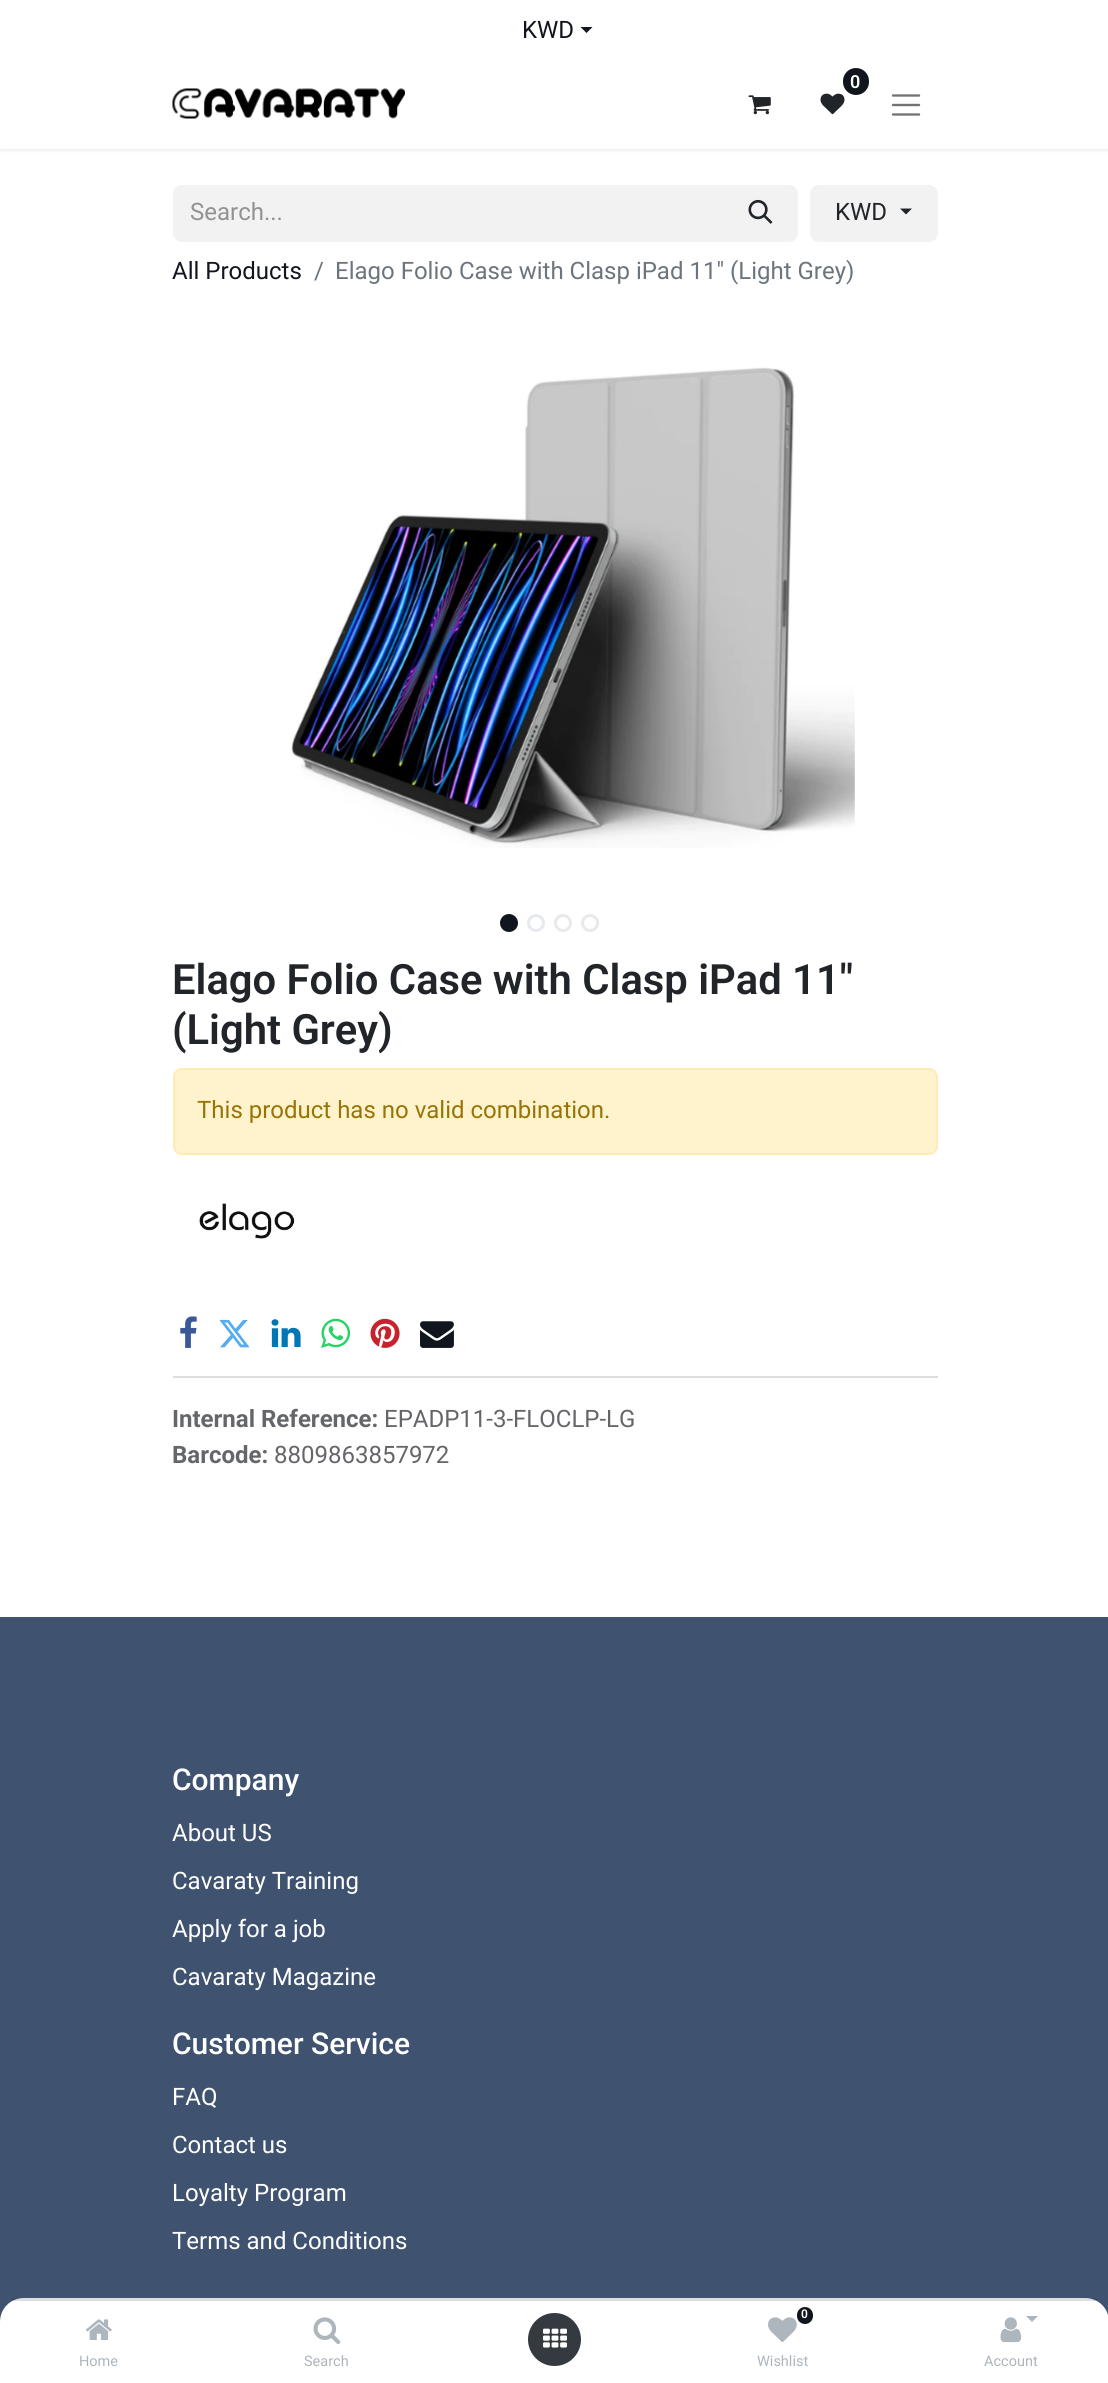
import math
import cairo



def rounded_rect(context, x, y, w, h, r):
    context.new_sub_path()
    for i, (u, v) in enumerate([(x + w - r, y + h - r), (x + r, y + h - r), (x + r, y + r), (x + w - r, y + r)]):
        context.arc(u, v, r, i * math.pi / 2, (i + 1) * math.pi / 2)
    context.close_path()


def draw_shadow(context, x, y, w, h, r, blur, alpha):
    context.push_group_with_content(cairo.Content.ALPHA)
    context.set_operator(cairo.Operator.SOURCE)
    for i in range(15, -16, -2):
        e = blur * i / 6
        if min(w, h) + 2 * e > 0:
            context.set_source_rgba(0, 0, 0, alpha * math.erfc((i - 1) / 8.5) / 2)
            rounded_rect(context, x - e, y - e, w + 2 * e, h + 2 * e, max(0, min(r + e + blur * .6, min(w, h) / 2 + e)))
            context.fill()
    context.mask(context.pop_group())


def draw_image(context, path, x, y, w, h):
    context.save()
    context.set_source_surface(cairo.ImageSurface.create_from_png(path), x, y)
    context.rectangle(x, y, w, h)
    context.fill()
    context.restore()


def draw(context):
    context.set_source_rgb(1, 1, 1)
    context.paint()
    context.set_source_rgb(17 / 255, 22 / 255, 30 / 255)
    context.new_path()
    context.move_to(580.5, 27)
    context.line_to(592.5, 27)
    context.line_to(586.5, 33)
    context.close_path()
    context.fill()
    context.set_source_rgb(0, 0, 0)
    draw_shadow(context, 0, 62, 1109, 88, 0, 2, 0.1)
    context.set_source_rgb(1, 1, 1)
    context.rectangle(0, 60, 1108, 89)
    context.fill()
    draw_image(context, "images/1.png", 820, 93, 25, 22)
    context.set_source_rgb(17 / 255, 22 / 255, 30 / 255)
    rounded_rect(context, 843, 68, 26, 27, 13)
    context.fill()
    draw_image(context, "images/2.png", 748, 95, 23, 20)
    context.new_path()
    context.move_to(893, 95.5)
    context.line_to(919, 95.5)
    context.move_to(893, 105)
    context.line_to(919, 105)
    context.move_to(893, 114.5)
    context.line_to(919, 114.5)
    context.set_source_rgb(115 / 255, 115 / 255, 115 / 255)
    context.set_line_width(2.4)
    context.set_line_cap(cairo.LineCap.ROUND)
    context.stroke()
    draw_image(context, "images/3.png", 172, 88, 233, 31)
    context.set_source_rgb(243 / 255, 242 / 255, 242 / 255)
    context.new_path()
    context.move_to(182, 185)
    context.line_to(725, 185)
    context.line_to(725, 242)
    context.line_to(182, 242)
    context.curve_to(177, 242, 173, 238, 173, 233)
    context.line_to(173, 194)
    context.curve_to(173, 189, 177, 185, 182, 185)
    context.close_path()
    context.fill()
    context.new_path()
    context.move_to(724, 186)
    context.line_to(789, 186)
    context.curve_to(793.5, 186, 797, 189.5, 797, 194)
    context.line_to(797, 233)
    context.curve_to(797, 237.5, 793.5, 241, 789, 241)
    context.line_to(724, 241)
    context.close_path()
    context.fill_preserve()
    context.set_line_width(2)
    context.set_line_cap(cairo.LineCap.BUTT)
    context.stroke()
    draw_image(context, "images/4.png", 748, 199, 25, 25)
    rounded_rect(context, 811, 186, 126, 55, 8)
    context.fill_preserve()
    context.stroke()
    context.set_source_rgb(33 / 255, 37 / 255, 41 / 255)
    context.new_path()
    context.move_to(900, 208.5)
    context.line_to(912, 208.5)
    context.line_to(906, 214.5)
    context.close_path()
    context.fill()
    draw_image(context, "images/5.png", 291, 367, 564, 481)
    context.set_source_rgb(17 / 255, 22 / 255, 30 / 255)
    context.arc(509, 923, 7.5, 0, 2 * math.pi)
    context.fill_preserve()
    context.set_line_width(3)
    context.stroke()
    context.arc(536, 923, 7.5, 0, 2 * math.pi)
    context.set_source_rgb(231 / 255, 234 / 255, 237 / 255)
    context.stroke()
    context.arc(563, 923, 7.5, 0, 2 * math.pi)
    context.stroke()
    context.arc(590, 923, 7.5, 0, 2 * math.pi)
    context.stroke()
    context.set_source_rgb(1, 243 / 255, 205 / 255)
    rounded_rect(context, 174, 1069, 763, 85, 8)
    context.fill_preserve()
    context.set_source_rgb(1, 236 / 255, 181 / 255)
    context.set_line_width(2)
    context.stroke()
    draw_image(context, "images/6.png", 199, 1203, 96, 36)
    draw_image(context, "images/7.png", 180, 1316, 17, 32)
    draw_image(context, "images/8.png", 219, 1319, 31, 29)
    draw_image(context, "images/9.png", 271, 1319, 30, 28)
    draw_image(context, "images/10.png", 321, 1318, 30, 30)
    draw_image(context, "images/11.png", 370, 1318, 30, 30)
    draw_image(context, "images/12.png", 420, 1321, 34, 27)
    context.set_source_rgb(222 / 255, 222 / 255, 223 / 255)
    context.rectangle(173, 1376, 765, 2)
    context.fill()
    context.set_source_rgb(63 / 255, 82 / 255, 111 / 255)
    context.rectangle(0, 1617, 1108, 705)
    context.fill()
    context.set_source_rgb(1, 1, 1)
    context.new_path()
    context.move_to(24, 2298)
    context.line_to(1085, 2298)
    context.curve_to(1098.5, 2298, 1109, 2308.5, 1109, 2322)
    context.line_to(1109, 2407)
    context.line_to(0, 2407)
    context.line_to(0, 2322)
    context.curve_to(0, 2308.5, 10.5, 2298, 24, 2298)
    context.close_path()
    context.fill()
    context.set_source_rgba(33 / 255, 37 / 255, 41 / 255, 0.15)
    context.rectangle(12, 2298, 1085, 3)
    context.fill()
    draw_image(context, "images/13.png", 86, 2319, 26, 21)
    draw_image(context, "images/14.png", 313, 2317, 28, 27)
    context.set_source_rgb(52 / 255, 58 / 255, 64 / 255)
    context.arc(554.5, 2339.5, 26.5, 0, 2 * math.pi)
    context.fill()
    draw_image(context, "images/15.png", 543, 2328, 24, 20)
    context.set_source_rgb(17 / 255, 22 / 255, 30 / 255)
    rounded_rect(context, 797, 2307, 16, 17, 8)
    context.fill()
    draw_image(context, "images/16.png", 768, 2317, 29, 25)
    draw_image(context, "images/17.png", 1000, 2317, 22, 26)
    context.set_source_rgb(173 / 255, 181 / 255, 189 / 255)
    context.new_path()
    context.move_to(1026, 2316)
    context.line_to(1038, 2316)
    context.line_to(1032, 2322)
    context.close_path()
    context.fill()
    context.select_font_face("Roboto")
    context.set_font_size(24)
    context.set_source_rgb(17 / 255, 22 / 255, 30 / 255)
    context.move_to(522, 38)
    context.show_text("KWD")
    context.select_font_face("Roboto SemiBold")
    context.set_font_size(18)
    context.set_source_rgb(1, 1, 1)
    context.move_to(850, 88)
    context.show_text("0")
    context.select_font_face("Roboto")
    context.set_font_size(24)
    context.set_source_rgb(144 / 255, 146 / 255, 148 / 255)
    context.move_to(190, 220)
    context.show_text("Search...")
    context.set_source_rgb(33 / 255, 37 / 255, 41 / 255)
    context.move_to(835, 220)
    context.show_text("KWD")
    context.set_source_rgb(17 / 255, 22 / 255, 30 / 255)
    context.move_to(172, 279)
    context.show_text("All Products")
    context.set_source_rgb(108 / 255, 117 / 255, 125 / 255)
    context.move_to(314, 279)
    context.show_text("/")
    context.move_to(335, 279)
    context.show_text("Elago Folio Case with Clasp iPad 11\" (Light Grey)")
    context.select_font_face("Roboto SemiBold")
    context.set_font_size(41.75)
    context.set_source_rgb(33 / 255, 37 / 255, 41 / 255)
    context.move_to(172, 994)
    context.show_text("Elago Folio Case with Clasp iPad 11\"")
    context.move_to(172, 1044)
    context.show_text("(Light Grey)")
    context.select_font_face("Roboto")
    context.set_font_size(24)
    context.set_source_rgb(153 / 255, 116 / 255, 4 / 255)
    context.move_to(197, 1118)
    context.show_text("This product has no valid combination.")
    context.select_font_face("Roboto", cairo.FontSlant.NORMAL, cairo.FontWeight.BOLD)
    context.set_source_rgb(100 / 255, 102 / 255, 105 / 255)
    context.move_to(172, 1427)
    context.show_text("Internal Reference:")
    context.select_font_face("Roboto")
    context.move_to(384, 1427)
    context.show_text("EPADP11-3-FLOCLP-LG")
    context.select_font_face("Roboto", cairo.FontSlant.NORMAL, cairo.FontWeight.BOLD)
    context.move_to(172, 1463)
    context.show_text("Barcode:")
    context.select_font_face("Roboto")
    context.move_to(274, 1463)
    context.show_text("8809863857972")
    context.select_font_face("Roboto Medium")
    context.set_font_size(30)
    context.set_source_rgb(1, 1, 1)
    context.move_to(172, 1790)
    context.show_text("Company")
    context.select_font_face("Roboto")
    context.set_font_size(24)
    context.move_to(172, 1841)
    context.show_text("About US")
    context.move_to(172, 1889)
    context.show_text("Cavaraty Training")
    context.move_to(172, 1937)
    context.show_text("Apply for a job")
    context.move_to(172, 1985)
    context.show_text("Cavaraty Magazine")
    context.select_font_face("Roboto Medium")
    context.set_font_size(30)
    context.move_to(172, 2054)
    context.show_text("Customer Service")
    context.select_font_face("Roboto")
    context.set_font_size(24)
    context.move_to(172, 2105)
    context.show_text("FAQ")
    context.move_to(172, 2153)
    context.show_text("Contact us")
    context.move_to(172, 2201)
    context.show_text("Loyalty Program")
    context.move_to(172, 2249)
    context.show_text("Terms and Conditions")
    context.set_font_size(14.5)
    context.set_source_rgb(173 / 255, 181 / 255, 189 / 255)
    context.move_to(79, 2366)
    context.show_text("Home")
    context.move_to(304, 2366)
    context.show_text("Search")
    context.select_font_face("Roboto SemiBold")
    context.set_font_size(12)
    context.set_source_rgb(1, 1, 1)
    context.move_to(801, 2318)
    context.show_text("0")
    context.select_font_face("Roboto")
    context.set_font_size(14.5)
    context.set_source_rgb(173 / 255, 181 / 255, 189 / 255)
    context.move_to(757, 2366)
    context.show_text("Wishlist")
    context.move_to(984, 2366)
    context.show_text("Account")


surface = cairo.ImageSurface(cairo.Format.RGB24, 1108, 2383)
context = cairo.Context(surface)
options = cairo.FontOptions()
options.set_hint_metrics(cairo.HintMetrics.OFF)
options.set_hint_style(cairo.HintStyle.NONE)
context.set_font_options(options)
context.set_miter_limit(4)
draw(context)
surface.write_to_png("out.png")
